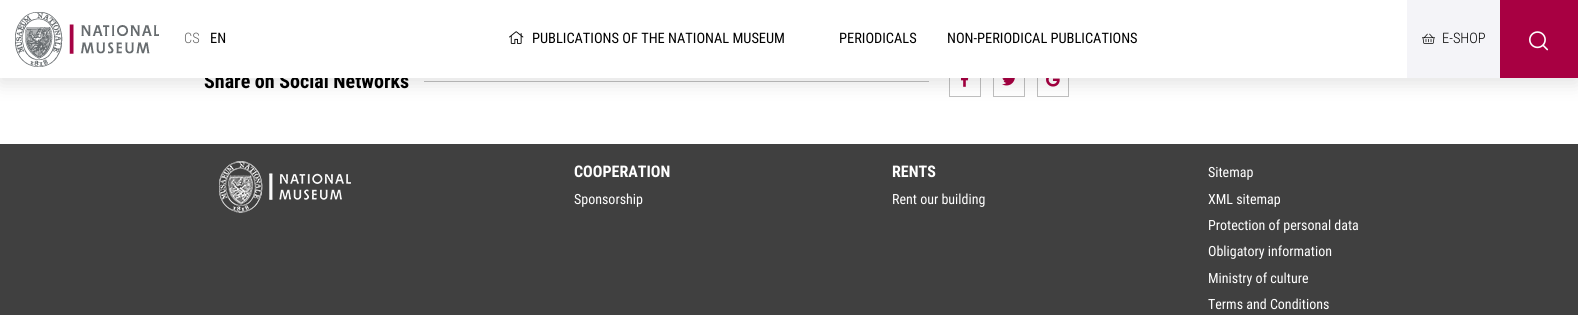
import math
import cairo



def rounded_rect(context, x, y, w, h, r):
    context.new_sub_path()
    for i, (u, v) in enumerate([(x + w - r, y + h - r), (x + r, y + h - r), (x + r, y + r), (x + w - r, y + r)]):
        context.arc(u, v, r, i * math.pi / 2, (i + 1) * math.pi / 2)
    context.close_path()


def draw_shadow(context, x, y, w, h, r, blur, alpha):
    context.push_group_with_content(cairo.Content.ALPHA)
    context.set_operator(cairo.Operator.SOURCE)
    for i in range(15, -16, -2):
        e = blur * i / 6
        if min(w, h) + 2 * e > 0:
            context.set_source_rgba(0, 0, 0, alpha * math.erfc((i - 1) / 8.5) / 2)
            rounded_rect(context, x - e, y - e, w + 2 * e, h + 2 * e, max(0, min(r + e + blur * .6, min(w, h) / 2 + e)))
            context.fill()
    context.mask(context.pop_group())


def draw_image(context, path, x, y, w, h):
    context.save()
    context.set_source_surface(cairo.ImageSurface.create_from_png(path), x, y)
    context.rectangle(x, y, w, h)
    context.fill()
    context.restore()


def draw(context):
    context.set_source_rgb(1, 1, 1)
    context.paint()
    context.set_source_rgb(191 / 255, 191 / 255, 191 / 255)
    context.rectangle(424, 81, 505, 1)
    context.fill()
    context.rectangle(949.5, 65.5, 31, 31)
    context.set_line_width(1)
    context.stroke()
    draw_image(context, "images/5.png", 961, 78, 8, 9)
    context.rectangle(993.5, 65.5, 31, 31)
    context.stroke()
    draw_image(context, "images/6.png", 1002, 78, 13, 8)
    context.rectangle(1037.5, 65.5, 31, 31)
    context.stroke()
    draw_image(context, "images/7.png", 1046, 78, 14, 9)
    context.set_source_rgb(0, 0, 0)
    draw_shadow(context, 0, 5, 1578, 78, 0, 10, 0.12)
    context.set_source_rgb(244 / 255, 244 / 255, 248 / 255)
    context.rectangle(1407, 0, 93, 78)
    context.fill()
    draw_image(context, "images/3.png", 1422, 33, 13, 11)
    context.set_source_rgb(168 / 255, 0, 66 / 255)
    context.rectangle(1500, 0, 78, 78)
    context.fill()
    draw_image(context, "images/4.png", 1529, 31, 20, 20)
    context.set_source_rgb(64 / 255, 64 / 255, 64 / 255)
    context.rectangle(0, 144, 1578, 171)
    context.fill()
    draw_image(context, "images/8.png", 219, 161, 132, 52)
    context.select_font_face("Roboto Condensed Light")
    context.set_font_size(14.4)
    context.set_source_rgb(0, 0, 0)
    context.move_to(1442, 43)
    context.show_text("E-SHOP")
    context.select_font_face("Roboto Condensed", cairo.FontSlant.NORMAL, cairo.FontWeight.BOLD)
    context.set_font_size(20)
    context.move_to(204, 88)
    context.show_text("Share on Social Networks")
    context.set_source_rgb(1, 1, 1)
    context.rectangle(0, 0, 1407, 78)
    context.fill()
    context.select_font_face("Roboto Condensed")
    context.set_font_size(14.4)
    context.set_source_rgb(0, 0, 0)
    context.move_to(947, 43)
    context.show_text("NON-PERIODICAL PUBLICATIONS")
    context.move_to(839, 43)
    context.show_text("PERIODICALS")
    context.move_to(532, 43)
    context.show_text("PUBLICATIONS OF THE NATIONAL MUSEUM")
    draw_image(context, "images/2.png", 509, 31, 15, 13)
    context.move_to(210, 43)
    context.show_text("EN")
    context.select_font_face("Roboto Condensed Light")
    context.set_source_rgb(102 / 255, 102 / 255, 102 / 255)
    context.move_to(184, 43)
    context.show_text("CS")
    draw_image(context, "images/1.png", 15, 12, 144, 55)
    context.select_font_face("Roboto Condensed", cairo.FontSlant.NORMAL, cairo.FontWeight.BOLD)
    context.set_font_size(16)
    context.set_source_rgb(1, 1, 1)
    context.move_to(574, 177)
    context.show_text("COOPERATION")
    context.select_font_face("Roboto Condensed")
    context.set_font_size(14)
    context.move_to(574, 204)
    context.show_text("Sponsorship")
    context.select_font_face("Roboto Condensed", cairo.FontSlant.NORMAL, cairo.FontWeight.BOLD)
    context.set_font_size(16)
    context.move_to(892, 177)
    context.show_text("RENTS")
    context.select_font_face("Roboto Condensed")
    context.set_font_size(14)
    context.move_to(892, 204)
    context.show_text("Rent our building")
    context.move_to(1208, 177)
    context.show_text("Sitemap")
    context.move_to(1208, 204)
    context.show_text("XML sitemap")
    context.move_to(1208, 230)
    context.show_text("Protection of personal data")
    context.move_to(1208, 256)
    context.show_text("Obligatory information")
    context.move_to(1208, 283)
    context.show_text("Ministry of culture")
    context.move_to(1208, 309)
    context.show_text("Terms and Conditions")


surface = cairo.ImageSurface(cairo.Format.RGB24, 1578, 315)
context = cairo.Context(surface)
options = cairo.FontOptions()
options.set_hint_metrics(cairo.HintMetrics.OFF)
options.set_hint_style(cairo.HintStyle.NONE)
context.set_font_options(options)
context.set_miter_limit(4)
draw(context)
surface.write_to_png("out.png")
